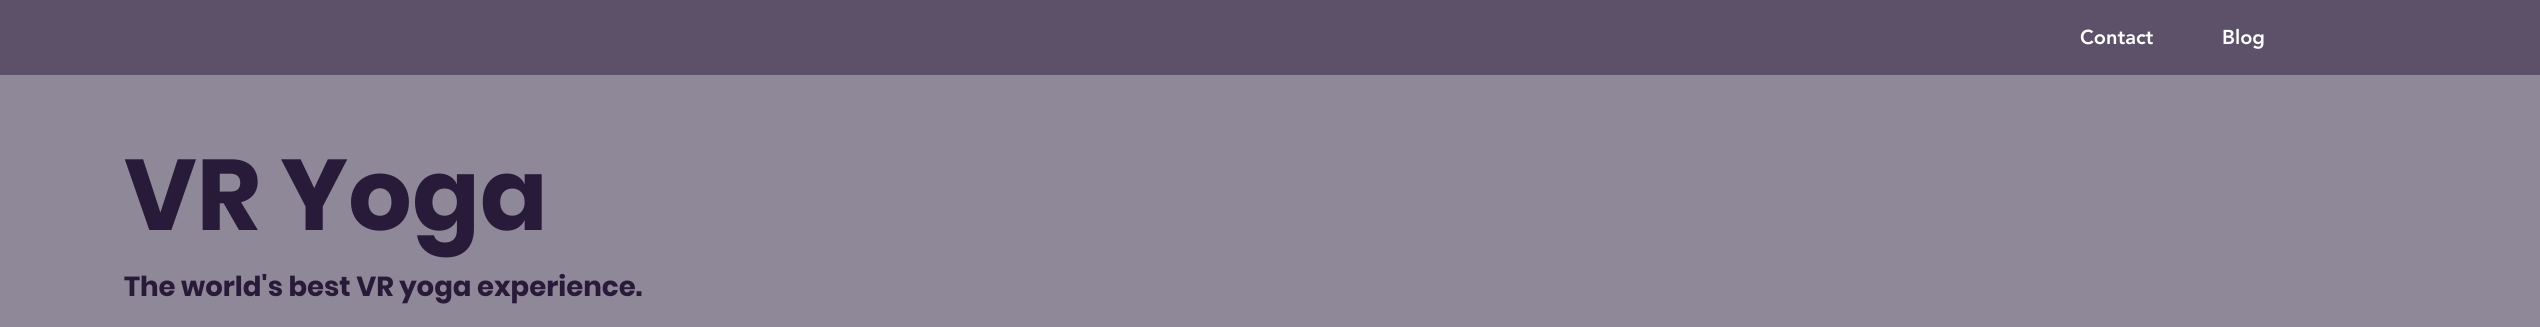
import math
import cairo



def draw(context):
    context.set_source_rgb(143 / 255, 136 / 255, 152 / 255)
    context.paint()
    context.set_source_rgb(92 / 255, 81 / 255, 104 / 255)
    context.rectangle(0, 0, 2540, 75)
    context.fill()
    context.select_font_face("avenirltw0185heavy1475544 Black")
    context.set_font_size(20)
    context.set_source_rgb(1, 1, 1)
    context.move_to(2080, 44)
    context.show_text("Contact")
    context.move_to(2222, 44)
    context.show_text("Blog")
    context.select_font_face("Poppins", cairo.FontSlant.NORMAL, cairo.FontWeight.BOLD)
    context.set_font_size(100)
    context.set_source_rgb(40 / 255, 26 / 255, 57 / 255)
    context.move_to(124, 230)
    context.show_text("VR Yoga")
    context.set_font_size(27.5)
    context.move_to(124, 296)
    context.show_text("The world's best VR yoga experience.")


surface = cairo.ImageSurface(cairo.Format.RGB24, 2540, 327)
context = cairo.Context(surface)
options = cairo.FontOptions()
options.set_hint_metrics(cairo.HintMetrics.OFF)
options.set_hint_style(cairo.HintStyle.NONE)
context.set_font_options(options)
context.set_miter_limit(4)
draw(context)
surface.write_to_png("out.png")
